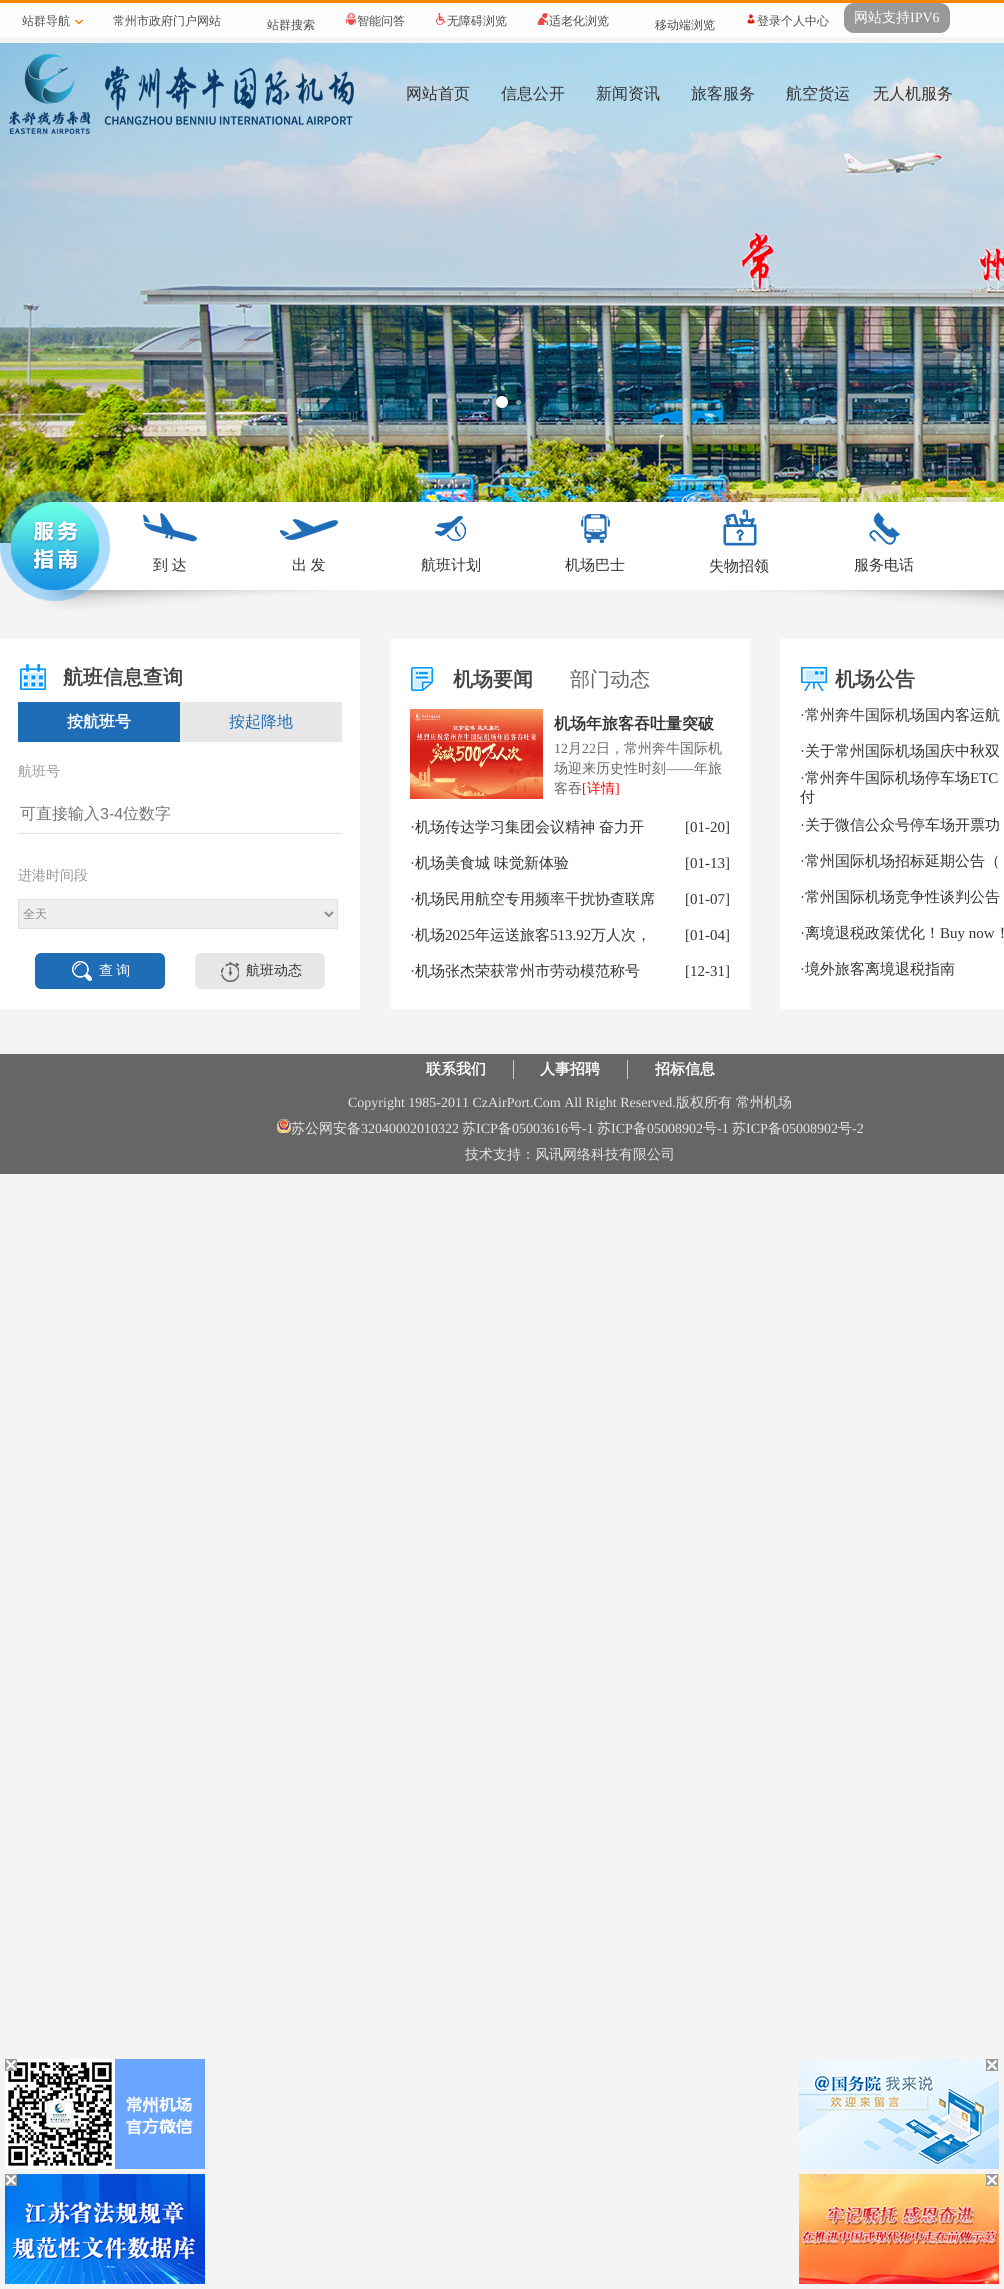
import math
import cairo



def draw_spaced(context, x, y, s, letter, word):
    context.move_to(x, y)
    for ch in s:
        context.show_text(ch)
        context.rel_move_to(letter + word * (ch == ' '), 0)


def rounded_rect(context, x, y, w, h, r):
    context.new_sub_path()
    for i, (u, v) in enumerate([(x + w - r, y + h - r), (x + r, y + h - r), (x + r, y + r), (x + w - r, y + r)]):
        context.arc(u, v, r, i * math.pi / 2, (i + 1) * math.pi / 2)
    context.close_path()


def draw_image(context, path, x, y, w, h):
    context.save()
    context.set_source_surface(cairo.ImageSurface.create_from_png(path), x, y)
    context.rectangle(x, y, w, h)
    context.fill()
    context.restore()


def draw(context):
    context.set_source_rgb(244 / 255, 244 / 255, 244 / 255)
    context.paint()
    context.set_source_rgb(252 / 255, 252 / 255, 252 / 255)
    context.rectangle(0, 3, 1004, 35)
    context.fill()
    context.set_source_rgb(1, 133 / 255, 0)
    context.rectangle(0, 0, 1004, 3)
    context.fill()
    context.set_source_rgb(238 / 255, 238 / 255, 238 / 255)
    context.rectangle(0, 38, 1004, 1)
    context.fill()
    draw_image(context, "images/1.png", 75, 20, 8, 4)
    draw_image(context, "images/2.png", 346, 13, 10, 12)
    draw_image(context, "images/3.png", 436, 13, 9, 12)
    draw_image(context, "images/4.png", 537, 13, 12, 12)
    draw_image(context, "images/5.png", 747, 14, 8, 10)
    context.set_source_rgb(153 / 255, 153 / 255, 153 / 255)
    rounded_rect(context, 844, 3, 106, 30, 10)
    context.fill()
    draw_image(context, "images/6.png", 0, 43, 1004, 500)
    context.set_source_rgba(1, 1, 1, 0.5)
    context.arc(485.5, 402.5, 2.5, 0, 2 * math.pi)
    context.fill()
    context.set_source_rgba(0, 0, 0, 0.1)
    context.new_path()
    context.move_to(498.5, 406.5)
    context.curve_to(503.5, 413.5, 513.5, 403.5, 506.5, 398.5)
    context.curve_to(511, 404, 504, 411, 498.5, 406.5)
    context.close_path()
    context.fill()
    context.set_source_rgb(1, 1, 1)
    context.arc(502, 402, 6, 0, 2 * math.pi)
    context.fill()
    context.set_source_rgba(1, 1, 1, 0.5)
    context.arc(518.5, 402.5, 2.5, 0, 2 * math.pi)
    context.fill()
    draw_image(context, "images/7.png", 9, 54, 345, 80)
    draw_image(context, "images/8.png", 0, 491, 1004, 118)
    draw_image(context, "images/9.png", 142, 513, 55, 29)
    draw_image(context, "images/10.png", 280, 519, 58, 21)
    draw_image(context, "images/11.png", 435, 516, 31, 25)
    draw_image(context, "images/12.png", 581, 514, 29, 29)
    draw_image(context, "images/13.png", 723, 509, 34, 37)
    draw_image(context, "images/14.png", 869, 512, 31, 33)
    context.set_source_rgb(1, 1, 1)
    context.rectangle(0, 639, 360, 370)
    context.fill()
    draw_image(context, "images/15.png", 20, 664, 26, 26)
    context.set_source_rgb(32 / 255, 109 / 255, 183 / 255)
    context.rectangle(18, 702, 162, 40)
    context.fill()
    context.set_source_rgb(231 / 255, 231 / 255, 231 / 255)
    context.rectangle(180, 702, 162, 40)
    context.fill()
    context.set_source_rgb(226 / 255, 226 / 255, 226 / 255)
    context.rectangle(18, 833, 324, 1)
    context.fill()
    context.set_source_rgb(239 / 255, 239 / 255, 239 / 255)
    context.rectangle(18.5, 899.5, 319, 29)
    context.fill_preserve()
    context.set_source_rgb(226 / 255, 226 / 255, 226 / 255)
    context.set_line_width(1)
    context.stroke()
    context.new_path()
    context.move_to(325, 912)
    context.line_to(329, 916)
    context.line_to(333, 912)
    context.set_source_rgb(139 / 255, 139 / 255, 139 / 255)
    context.set_line_width(2)
    context.stroke()
    context.set_source_rgb(32 / 255, 109 / 255, 183 / 255)
    rounded_rect(context, 35, 953, 130, 36, 6)
    context.fill()
    draw_image(context, "images/16.png", 72, 961, 20, 20)
    context.set_source_rgb(231 / 255, 231 / 255, 231 / 255)
    rounded_rect(context, 195, 953, 130, 36, 6)
    context.fill()
    draw_image(context, "images/17.png", 221, 962, 18, 20)
    context.set_source_rgb(1, 1, 1)
    context.rectangle(390, 639, 360, 370)
    context.fill()
    draw_image(context, "images/18.png", 411, 667, 22, 24)
    draw_image(context, "images/19.png", 410, 709, 133, 90)
    context.rectangle(780, 639, 224, 370)
    context.fill()
    draw_image(context, "images/20.png", 801, 667, 26, 24)
    context.set_source_rgb(102 / 255, 102 / 255, 102 / 255)
    context.rectangle(0, 1054, 1004, 120)
    context.fill()
    context.set_source_rgb(204 / 255, 204 / 255, 204 / 255)
    context.rectangle(513, 1060, 1, 19)
    context.fill()
    context.rectangle(627, 1060, 1, 19)
    context.fill()
    draw_image(context, "images/21.png", 277, 1119, 14, 14)
    draw_image(context, "images/22.png", 5, 2059, 200, 110)
    draw_image(context, "images/23.png", 5, 2059, 12, 12)
    draw_image(context, "images/24.png", 5, 2174, 200, 110)
    draw_image(context, "images/23.png", 5, 2174, 12, 12)
    draw_image(context, "images/25.png", 799, 2059, 200, 110)
    draw_image(context, "images/23.png", 986, 2059, 12, 12)
    draw_image(context, "images/26.png", 799, 2174, 200, 110)
    draw_image(context, "images/23.png", 986, 2174, 12, 12)
    context.select_font_face("WenQuanYi Zen Hei Medium")
    context.set_font_size(12)
    context.set_source_rgb(76 / 255, 76 / 255, 76 / 255)
    context.move_to(22, 25)
    context.show_text("站群导航")
    context.move_to(113, 25)
    context.show_text("常州市政府门户网站")
    context.move_to(267, 29)
    context.show_text("站群搜索")
    context.move_to(357, 25)
    context.show_text("智能问答")
    context.move_to(447, 25)
    context.show_text("无障碍浏览")
    context.move_to(549, 25)
    context.show_text("适老化浏览")
    context.move_to(655, 29)
    context.show_text("移动端浏览")
    context.move_to(757, 25)
    context.show_text("登录个人中心")
    context.set_font_size(14)
    context.set_source_rgb(1, 1, 1)
    context.move_to(854, 22)
    context.show_text("网站支持")
    context.select_font_face("Liberation Serif")
    context.move_to(910, 22)
    context.show_text("IPV6")
    context.select_font_face("WenQuanYi Zen Hei Medium")
    context.set_font_size(16)
    context.set_source_rgb(51 / 255, 51 / 255, 51 / 255)
    context.move_to(406, 99)
    context.show_text("网站首页")
    context.move_to(501, 99)
    context.show_text("信息公开")
    context.move_to(596, 99)
    context.show_text("新闻资讯")
    context.move_to(691, 99)
    context.show_text("旅客服务")
    context.move_to(786, 99)
    context.show_text("航空货运")
    context.move_to(873, 99)
    context.show_text("无人机服务")
    context.set_font_size(15)
    draw_spaced(context, 153, 570, "到 达", 0, -1)
    draw_spaced(context, 292, 570, "出 发", 0, -1)
    context.move_to(421, 570)
    context.show_text("航班计划")
    context.move_to(565, 570)
    context.show_text("机场巴士")
    context.move_to(709, 571)
    context.show_text("失物招领")
    context.move_to(854, 570)
    context.show_text("服务电话")
    context.select_font_face("WenQuanYi Zen Hei", cairo.FontSlant.NORMAL, cairo.FontWeight.BOLD)
    context.set_font_size(20)
    context.set_source_rgb(68 / 255, 68 / 255, 68 / 255)
    context.move_to(63, 684)
    context.show_text("航班信息查询")
    context.set_font_size(16)
    context.set_source_rgb(1, 1, 1)
    context.move_to(67, 727)
    context.show_text("按航班号")
    context.select_font_face("WenQuanYi Zen Hei Medium")
    context.set_source_rgb(32 / 255, 109 / 255, 183 / 255)
    context.move_to(229, 727)
    context.show_text("按起降地")
    context.set_font_size(14)
    context.set_source_rgb(153 / 255, 153 / 255, 153 / 255)
    context.move_to(18, 776)
    context.show_text("航班号")
    context.set_font_size(16)
    context.set_source_rgb(117 / 255, 117 / 255, 117 / 255)
    context.move_to(20, 819)
    context.show_text("可直接输入")
    context.select_font_face("Liberation Sans")
    context.move_to(100, 819)
    context.show_text("3-4")
    context.select_font_face("WenQuanYi Zen Hei Medium")
    context.move_to(123, 819)
    context.show_text("位数字")
    context.set_font_size(14)
    context.set_source_rgb(153 / 255, 153 / 255, 153 / 255)
    context.move_to(18, 880)
    context.show_text("进港时间段")
    context.set_font_size(12)
    context.set_source_rgb(139 / 255, 139 / 255, 139 / 255)
    context.move_to(23, 918)
    context.show_text("全天")
    context.set_font_size(14)
    context.set_source_rgb(1, 1, 1)
    draw_spaced(context, 99, 975, "查 询", 0, -1)
    context.set_source_rgb(51 / 255, 51 / 255, 51 / 255)
    context.move_to(246, 975)
    context.show_text("航班动态")
    context.select_font_face("WenQuanYi Zen Hei", cairo.FontSlant.NORMAL, cairo.FontWeight.BOLD)
    context.set_font_size(20)
    context.set_source_rgb(68 / 255, 68 / 255, 68 / 255)
    context.move_to(453, 686)
    context.show_text("机场要闻")
    context.select_font_face("WenQuanYi Zen Hei Medium")
    context.set_source_rgb(102 / 255, 102 / 255, 102 / 255)
    context.move_to(570, 686)
    context.show_text("部门动态")
    context.select_font_face("WenQuanYi Zen Hei", cairo.FontSlant.NORMAL, cairo.FontWeight.BOLD)
    context.set_font_size(16)
    context.set_source_rgb(51 / 255, 51 / 255, 51 / 255)
    context.move_to(554, 729)
    context.show_text("机场年旅客吞吐量突破")
    context.select_font_face("Liberation Serif")
    context.set_font_size(14)
    context.set_source_rgb(102 / 255, 102 / 255, 102 / 255)
    context.move_to(554, 753)
    context.show_text("12")
    context.select_font_face("WenQuanYi Zen Hei Medium")
    context.move_to(568, 753)
    context.show_text("月")
    context.select_font_face("Liberation Serif")
    context.move_to(582, 753)
    context.show_text("22")
    context.select_font_face("WenQuanYi Zen Hei Medium")
    context.move_to(596, 753)
    context.show_text("日，常州奔牛国际机")
    context.move_to(554, 773)
    context.show_text("场迎来历史性时刻")
    context.select_font_face("Liberation Serif")
    context.move_to(666, 773)
    context.show_text("——")
    context.select_font_face("WenQuanYi Zen Hei Medium")
    context.move_to(694, 773)
    context.show_text("年旅")
    context.move_to(554, 793)
    context.show_text("客吞")
    context.select_font_face("Liberation Serif")
    context.set_source_rgb(1, 0, 0)
    context.move_to(582, 793)
    context.show_text("[")
    context.select_font_face("WenQuanYi Zen Hei Medium")
    context.move_to(587, 793)
    context.show_text("详情")
    context.select_font_face("Liberation Serif")
    context.move_to(615, 793)
    context.show_text("]")
    context.set_font_size(15)
    context.set_source_rgb(51 / 255, 51 / 255, 51 / 255)
    context.move_to(410, 832)
    context.show_text("·")
    context.select_font_face("WenQuanYi Zen Hei Medium")
    context.move_to(415, 832)
    context.show_text("机场传达学习集团会议精神")
    context.move_to(599, 832)
    context.show_text("奋力开")
    context.select_font_face("Liberation Serif")
    context.move_to(685, 832)
    context.show_text("[01-20]")
    context.move_to(410, 868)
    context.show_text("·")
    context.select_font_face("WenQuanYi Zen Hei Medium")
    context.move_to(415, 868)
    context.show_text("机场美食城")
    context.move_to(494, 868)
    context.show_text("味觉新体验")
    context.select_font_face("Liberation Serif")
    context.move_to(685, 868)
    context.show_text("[01-13]")
    context.move_to(410, 904)
    context.show_text("·")
    context.select_font_face("WenQuanYi Zen Hei Medium")
    context.move_to(415, 904)
    context.show_text("机场民用航空专用频率干扰协查联席")
    context.select_font_face("Liberation Serif")
    context.move_to(685, 904)
    context.show_text("[01-07]")
    context.move_to(410, 940)
    context.show_text("·")
    context.select_font_face("WenQuanYi Zen Hei Medium")
    context.move_to(415, 940)
    context.show_text("机场")
    context.select_font_face("Liberation Serif")
    context.move_to(445, 940)
    context.show_text("2025")
    context.select_font_face("WenQuanYi Zen Hei Medium")
    context.move_to(475, 940)
    context.show_text("年运送旅客")
    context.select_font_face("Liberation Serif")
    context.move_to(550, 940)
    context.show_text("513.92")
    context.select_font_face("WenQuanYi Zen Hei Medium")
    context.move_to(591, 940)
    context.show_text("万人次，")
    context.select_font_face("Liberation Serif")
    context.move_to(685, 940)
    context.show_text("[01-04]")
    context.move_to(410, 976)
    context.show_text("·")
    context.select_font_face("WenQuanYi Zen Hei Medium")
    context.move_to(415, 976)
    context.show_text("机场张杰荣获常州市劳动模范称号")
    context.select_font_face("Liberation Serif")
    context.move_to(685, 976)
    context.show_text("[12-31]")
    context.select_font_face("WenQuanYi Zen Hei", cairo.FontSlant.NORMAL, cairo.FontWeight.BOLD)
    context.set_font_size(20)
    context.set_source_rgb(68 / 255, 68 / 255, 68 / 255)
    context.move_to(835, 686)
    context.show_text("机场公告")
    context.select_font_face("Liberation Serif")
    context.set_font_size(15)
    context.set_source_rgb(51 / 255, 51 / 255, 51 / 255)
    context.move_to(800, 720)
    context.show_text("·")
    context.select_font_face("WenQuanYi Zen Hei Medium")
    context.move_to(805, 720)
    context.show_text("常州奔牛国际机场国内客运航")
    context.select_font_face("Liberation Serif")
    context.move_to(800, 756)
    context.show_text("·")
    context.select_font_face("WenQuanYi Zen Hei Medium")
    context.move_to(805, 756)
    context.show_text("关于常州国际机场国庆中秋双")
    context.select_font_face("Liberation Serif")
    context.move_to(800, 783)
    context.show_text("·")
    context.select_font_face("WenQuanYi Zen Hei Medium")
    context.move_to(805, 783)
    context.show_text("常州奔牛国际机场停车场")
    context.select_font_face("Liberation Serif")
    context.move_to(970, 783)
    context.show_text("ETC")
    context.select_font_face("WenQuanYi Zen Hei Medium")
    context.move_to(800, 802)
    context.show_text("付")
    context.select_font_face("Liberation Serif")
    context.move_to(800, 830)
    context.show_text("·")
    context.select_font_face("WenQuanYi Zen Hei Medium")
    context.move_to(805, 830)
    context.show_text("关于微信公众号停车场开票功")
    context.select_font_face("Liberation Serif")
    context.move_to(800, 866)
    context.show_text("·")
    context.select_font_face("WenQuanYi Zen Hei Medium")
    context.move_to(805, 866)
    context.show_text("常州国际机场招标延期公告（")
    context.select_font_face("Liberation Serif")
    context.move_to(800, 902)
    context.show_text("·")
    context.select_font_face("WenQuanYi Zen Hei Medium")
    context.move_to(805, 902)
    context.show_text("常州国际机场竞争性谈判公告")
    context.select_font_face("Liberation Serif")
    context.move_to(800, 938)
    context.show_text("·")
    context.select_font_face("WenQuanYi Zen Hei Medium")
    context.move_to(805, 938)
    context.show_text("离境退税政策优化！")
    context.select_font_face("Liberation Serif")
    context.move_to(940, 938)
    context.show_text("Buy now")
    context.select_font_face("WenQuanYi Zen Hei Medium")
    context.move_to(995, 938)
    context.show_text("！")
    context.select_font_face("Liberation Serif")
    context.move_to(800, 974)
    context.show_text("·")
    context.select_font_face("WenQuanYi Zen Hei Medium")
    context.move_to(805, 974)
    context.show_text("境外旅客离境退税指南")
    context.select_font_face("WenQuanYi Zen Hei", cairo.FontSlant.NORMAL, cairo.FontWeight.BOLD)
    context.set_source_rgb(1, 1, 1)
    context.move_to(426, 1074)
    context.show_text("联系我们")
    context.move_to(540, 1074)
    context.show_text("人事招聘")
    context.move_to(655, 1074)
    context.show_text("招标信息")
    context.select_font_face("Liberation Serif")
    context.set_font_size(14)
    context.set_source_rgb(229 / 255, 229 / 255, 229 / 255)
    context.move_to(348, 1107)
    context.show_text("Copyright 1985-2011 CzAirPort.Com All Right Reserved.")
    context.select_font_face("WenQuanYi Zen Hei Medium")
    context.move_to(676, 1107)
    context.show_text("版权所有")
    context.move_to(736, 1107)
    context.show_text("常州机场")
    context.move_to(291, 1133)
    context.show_text("苏公网安备")
    context.select_font_face("Liberation Serif")
    context.move_to(361, 1133)
    context.show_text("32040002010322")
    context.select_font_face("WenQuanYi Zen Hei Medium")
    context.move_to(462, 1133)
    context.show_text("苏")
    context.select_font_face("Liberation Serif")
    context.move_to(476, 1133)
    context.show_text("ICP")
    context.select_font_face("WenQuanYi Zen Hei Medium")
    context.move_to(498, 1133)
    context.show_text("备")
    context.select_font_face("Liberation Serif")
    context.move_to(512, 1133)
    context.show_text("05003616")
    context.select_font_face("WenQuanYi Zen Hei Medium")
    context.move_to(568, 1133)
    context.show_text("号")
    context.select_font_face("Liberation Serif")
    context.move_to(582, 1133)
    context.show_text("-1")
    context.select_font_face("WenQuanYi Zen Hei Medium")
    context.move_to(597, 1133)
    context.show_text("苏")
    context.select_font_face("Liberation Serif")
    context.move_to(611, 1133)
    context.show_text("ICP")
    context.select_font_face("WenQuanYi Zen Hei Medium")
    context.move_to(633, 1133)
    context.show_text("备")
    context.select_font_face("Liberation Serif")
    context.move_to(647, 1133)
    context.show_text("05008902")
    context.select_font_face("WenQuanYi Zen Hei Medium")
    context.move_to(703, 1133)
    context.show_text("号")
    context.select_font_face("Liberation Serif")
    context.move_to(717, 1133)
    context.show_text("-1")
    context.select_font_face("WenQuanYi Zen Hei Medium")
    context.move_to(732, 1133)
    context.show_text("苏")
    context.select_font_face("Liberation Serif")
    context.move_to(746, 1133)
    context.show_text("ICP")
    context.select_font_face("WenQuanYi Zen Hei Medium")
    context.move_to(768, 1133)
    context.show_text("备")
    context.select_font_face("Liberation Serif")
    context.move_to(782, 1133)
    context.show_text("05008902")
    context.select_font_face("WenQuanYi Zen Hei Medium")
    context.move_to(838, 1133)
    context.show_text("号")
    context.select_font_face("Liberation Serif")
    context.move_to(852, 1133)
    context.show_text("-2")
    context.select_font_face("WenQuanYi Zen Hei Medium")
    context.move_to(465, 1159)
    context.show_text("技术支持：风讯网络科技有限公司")


surface = cairo.ImageSurface(cairo.Format.RGB24, 1004, 2289)
context = cairo.Context(surface)
options = cairo.FontOptions()
options.set_hint_metrics(cairo.HintMetrics.OFF)
options.set_hint_style(cairo.HintStyle.NONE)
context.set_font_options(options)
context.set_miter_limit(4)
draw(context)
surface.write_to_png("out.png")
